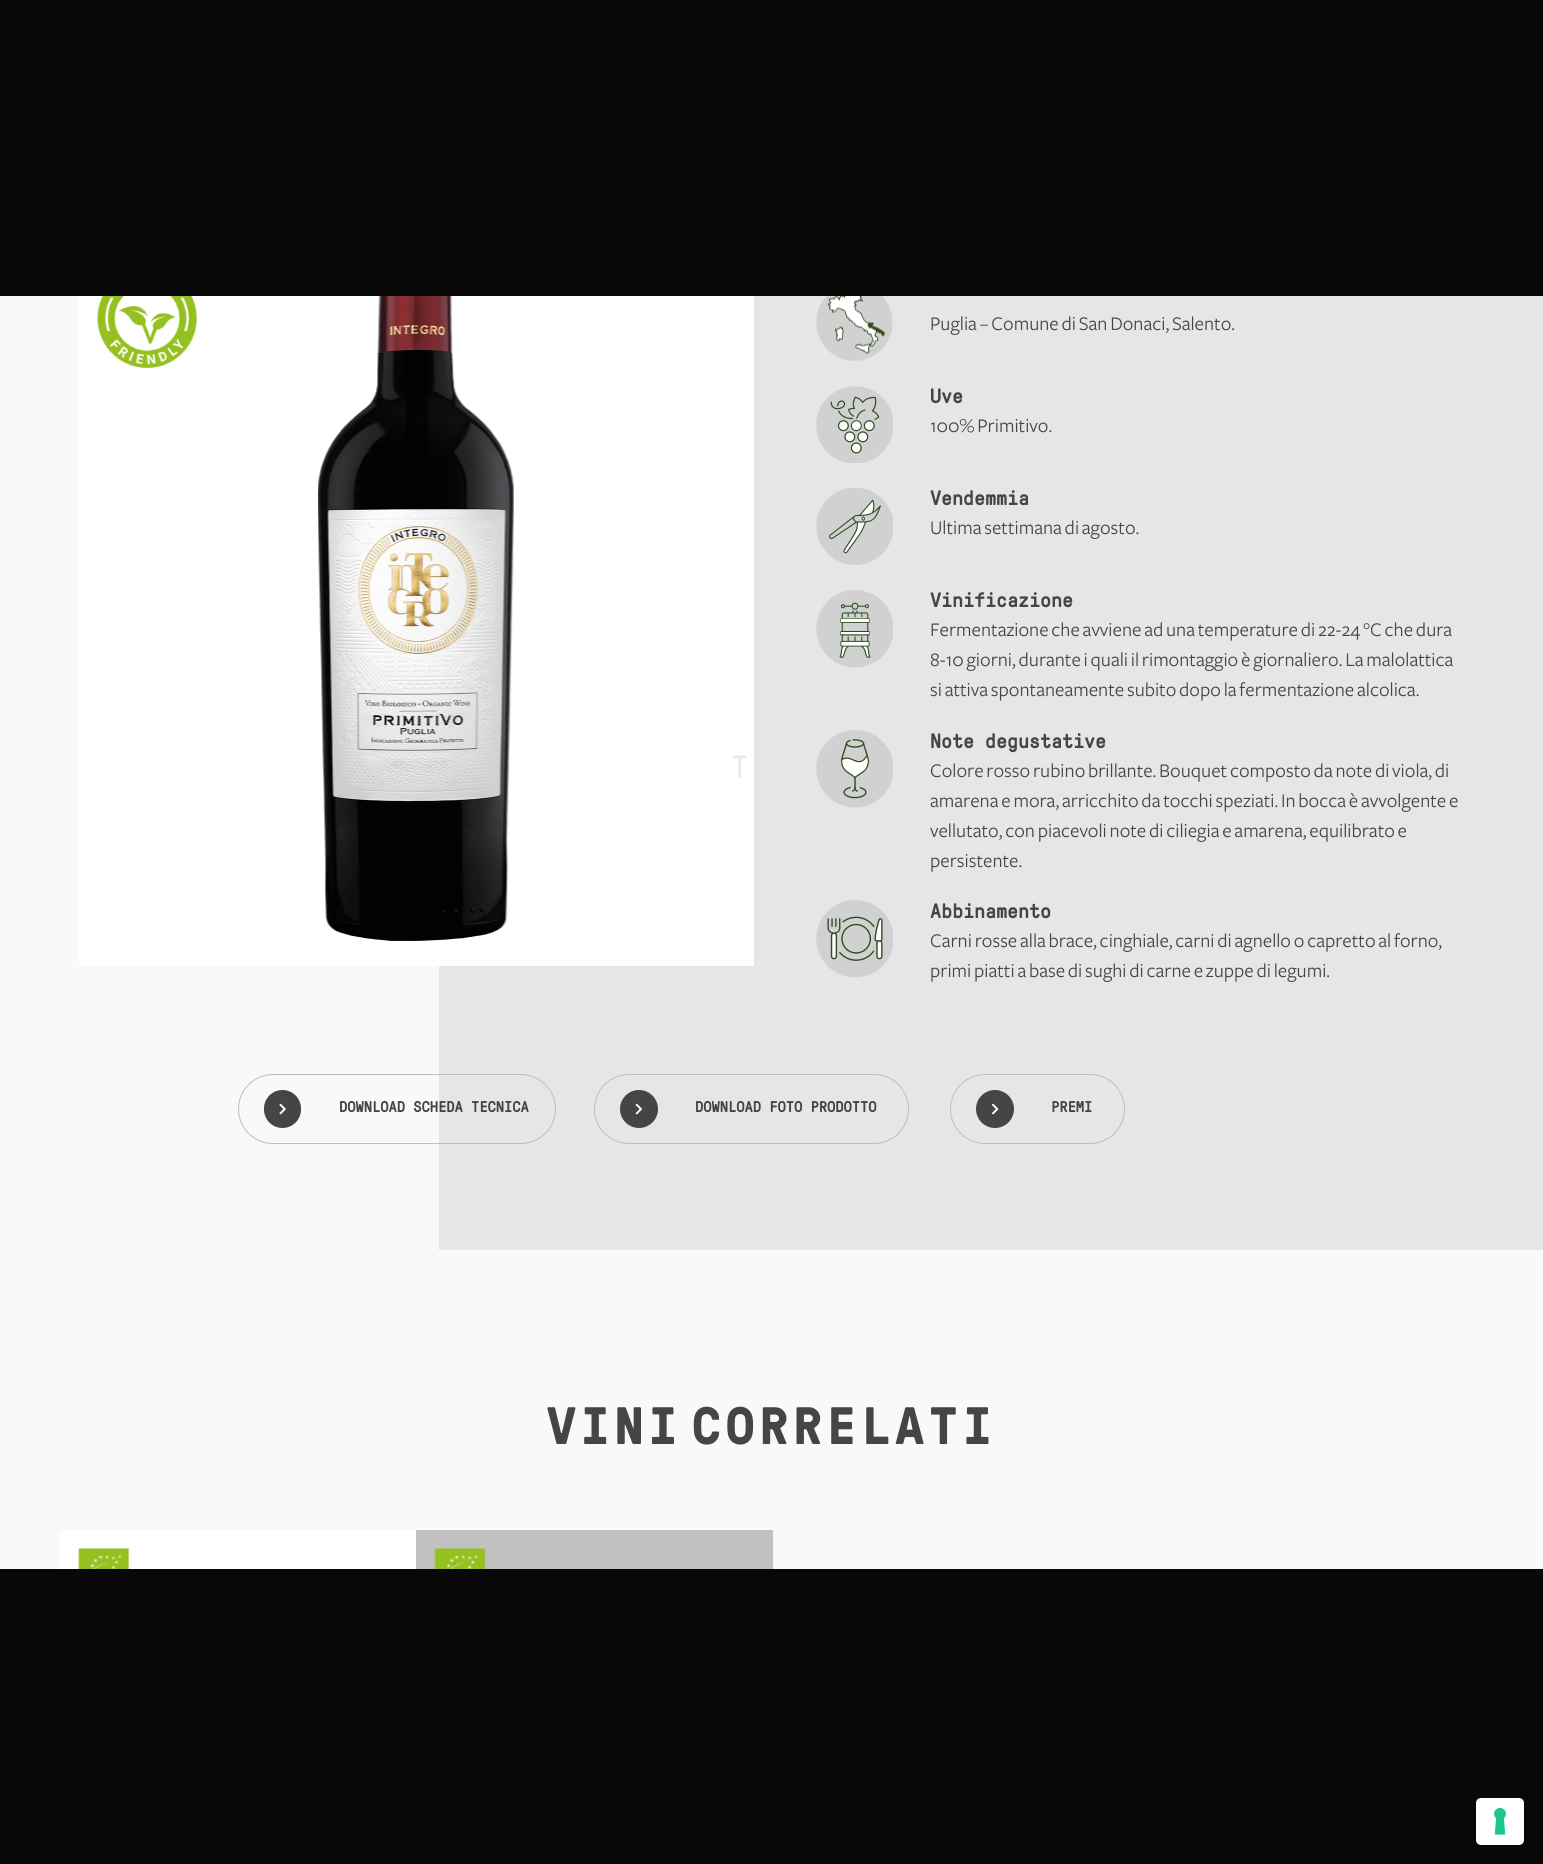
import math
import cairo



def draw_spaced(context, x, y, s, letter, word):
    context.move_to(x, y)
    for ch in s:
        context.show_text(ch)
        context.rel_move_to(letter + word * (ch == ' '), 0)


def rounded_rect(context, x, y, w, h, r):
    context.new_sub_path()
    for i, (u, v) in enumerate([(x + w - r, y + h - r), (x + r, y + h - r), (x + r, y + r), (x + w - r, y + r)]):
        context.arc(u, v, r, i * math.pi / 2, (i + 1) * math.pi / 2)
    context.close_path()


def draw_image(context, path, x, y, w, h):
    context.save()
    context.set_source_surface(cairo.ImageSurface.create_from_png(path), x, y)
    context.rectangle(x, y, w, h)
    context.fill()
    context.restore()


def draw(context):
    context.set_source_rgb(249 / 255, 249 / 255, 249 / 255)
    context.paint()
    context.set_source_rgb(230 / 255, 230 / 255, 230 / 255)
    context.rectangle(439, 296, 1104, 954)
    context.fill()
    context.set_source_rgb(1, 1, 1)
    context.rectangle(79, 296, 675, 670)
    context.fill()
    draw_image(context, "images/1.png", 97, 296, 100, 72)
    draw_image(context, "images/2.png", 318, 296, 196, 645)
    draw_image(context, "images/3.png", 816, 296, 77, 65)
    draw_image(context, "images/4.png", 816, 386, 77, 77)
    draw_image(context, "images/5.png", 816, 488, 77, 77)
    draw_image(context, "images/6.png", 816, 590, 77, 78)
    draw_image(context, "images/7.png", 816, 730, 77, 78)
    draw_image(context, "images/8.png", 816, 900, 77, 78)
    rounded_rect(context, 238.5, 1074.5, 317, 69, 34.5)
    context.set_source_rgb(190 / 255, 190 / 255, 190 / 255)
    context.set_line_width(1)
    context.stroke()
    context.set_source_rgb(69 / 255, 69 / 255, 69 / 255)
    rounded_rect(context, 264, 1090, 37, 38, 18.5)
    context.fill()
    draw_image(context, "images/9.png", 279, 1103, 7, 12)
    rounded_rect(context, 594.5, 1074.5, 314, 69, 34.5)
    context.set_source_rgb(190 / 255, 190 / 255, 190 / 255)
    context.stroke()
    context.set_source_rgb(69 / 255, 69 / 255, 69 / 255)
    context.arc(639, 1109, 19, 0, 2 * math.pi)
    context.fill()
    draw_image(context, "images/10.png", 635, 1103, 8, 12)
    rounded_rect(context, 950.5, 1074.5, 174, 69, 34.5)
    context.set_source_rgb(190 / 255, 190 / 255, 190 / 255)
    context.stroke()
    context.set_source_rgb(69 / 255, 69 / 255, 69 / 255)
    context.arc(995, 1109, 19, 0, 2 * math.pi)
    context.fill()
    draw_image(context, "images/11.png", 992, 1103, 7, 12)
    context.set_source_rgb(1, 1, 1)
    context.rectangle(60, 1530, 356, 39)
    context.fill()
    draw_image(context, "images/12.png", 78, 1548, 52, 21)
    context.set_source_rgb(193 / 255, 193 / 255, 193 / 255)
    context.rectangle(416, 1530, 357, 39)
    context.fill()
    draw_image(context, "images/13.png", 434, 1548, 52, 21)
    context.set_source_rgb(9 / 255, 8 / 255, 8 / 255)
    context.rectangle(0, 0, 1543, 296)
    context.fill()
    context.rectangle(0, 1569, 1543, 295)
    context.fill()
    context.set_source_rgb(1, 1, 1)
    rounded_rect(context, 1476, 1798, 48, 47, 5)
    context.fill()
    draw_image(context, "images/14.png", 1494, 1807, 12, 28)
    context.select_font_face("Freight")
    context.set_font_size(20)
    context.set_source_rgb(69 / 255, 69 / 255, 69 / 255)
    context.move_to(930, 330)
    context.show_text("Puglia – Comune di San Donaci, Salento.")
    context.select_font_face("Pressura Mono", cairo.FontSlant.NORMAL, cairo.FontWeight.BOLD)
    context.move_to(930, 403)
    context.show_text("Uve")
    context.select_font_face("Freight")
    context.move_to(930, 432)
    context.show_text("100% Primitivo.")
    context.select_font_face("Pressura Mono", cairo.FontSlant.NORMAL, cairo.FontWeight.BOLD)
    context.move_to(930, 505)
    context.show_text("Vendemmia")
    context.select_font_face("Freight")
    context.move_to(930, 534)
    context.show_text("Ultima settimana di agosto.")
    context.select_font_face("Pressura Mono", cairo.FontSlant.NORMAL, cairo.FontWeight.BOLD)
    context.move_to(930, 607)
    context.show_text("Vinificazione")
    context.select_font_face("Freight")
    context.move_to(930, 636)
    context.show_text("Fermentazione che avviene ad una temperature di 22-24 °C che dura")
    context.move_to(930, 666)
    context.show_text("8-10 giorni, durante i quali il rimontaggio è giornaliero. La malolattica")
    context.move_to(930, 696)
    context.show_text("si attiva spontaneamente subito dopo la fermentazione alcolica.")
    context.select_font_face("Pressura Mono", cairo.FontSlant.NORMAL, cairo.FontWeight.BOLD)
    context.move_to(930, 748)
    context.show_text("Note degustative")
    context.select_font_face("Freight")
    context.move_to(930, 777)
    context.show_text("Colore rosso rubino brillante. Bouquet composto da note di viola, di")
    context.move_to(930, 807)
    context.show_text("amarena e mora, arricchito da tocchi speziati. In bocca è avvolgente e")
    context.move_to(930, 837)
    context.show_text("vellutato, con piacevoli note di ciliegia e amarena, equilibrato e")
    context.move_to(930, 867)
    context.show_text("persistente.")
    context.select_font_face("Pressura Mono", cairo.FontSlant.NORMAL, cairo.FontWeight.BOLD)
    context.move_to(930, 918)
    context.show_text("Abbinamento")
    context.select_font_face("Freight")
    context.move_to(930, 947)
    context.show_text("Carni rosse alla brace, cinghiale, carni di agnello o capretto al forno,")
    context.move_to(930, 977)
    context.show_text("primi piatti a base di sughi di carne e zuppe di legumi.")
    context.select_font_face("Pressura Mono", cairo.FontSlant.NORMAL, cairo.FontWeight.BOLD)
    context.set_font_size(15)
    context.move_to(339, 1112)
    context.show_text("DOWNLOAD SCHEDA TECNICA")
    context.move_to(695, 1112)
    context.show_text("DOWNLOAD FOTO PRODOTTO")
    context.move_to(1051, 1112)
    context.show_text("PREMI")
    context.select_font_face("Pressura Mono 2", cairo.FontSlant.NORMAL, cairo.FontWeight.BOLD)
    context.set_font_size(52.5)
    draw_spaced(context, 547, 1444, "VINI", 5, 0)
    draw_spaced(context, 692, 1444, "CORRELATI", 5, 0)
    context.select_font_face("Pressura Mono")
    context.set_font_size(31)
    context.set_source_rgb(234 / 255, 234 / 255, 234 / 255)
    draw_spaced(context, 731, 777, "T", 10, 0)


surface = cairo.ImageSurface(cairo.Format.RGB24, 1543, 1864)
context = cairo.Context(surface)
options = cairo.FontOptions()
options.set_hint_metrics(cairo.HintMetrics.OFF)
options.set_hint_style(cairo.HintStyle.NONE)
context.set_font_options(options)
context.set_miter_limit(4)
draw(context)
surface.write_to_png("out.png")
